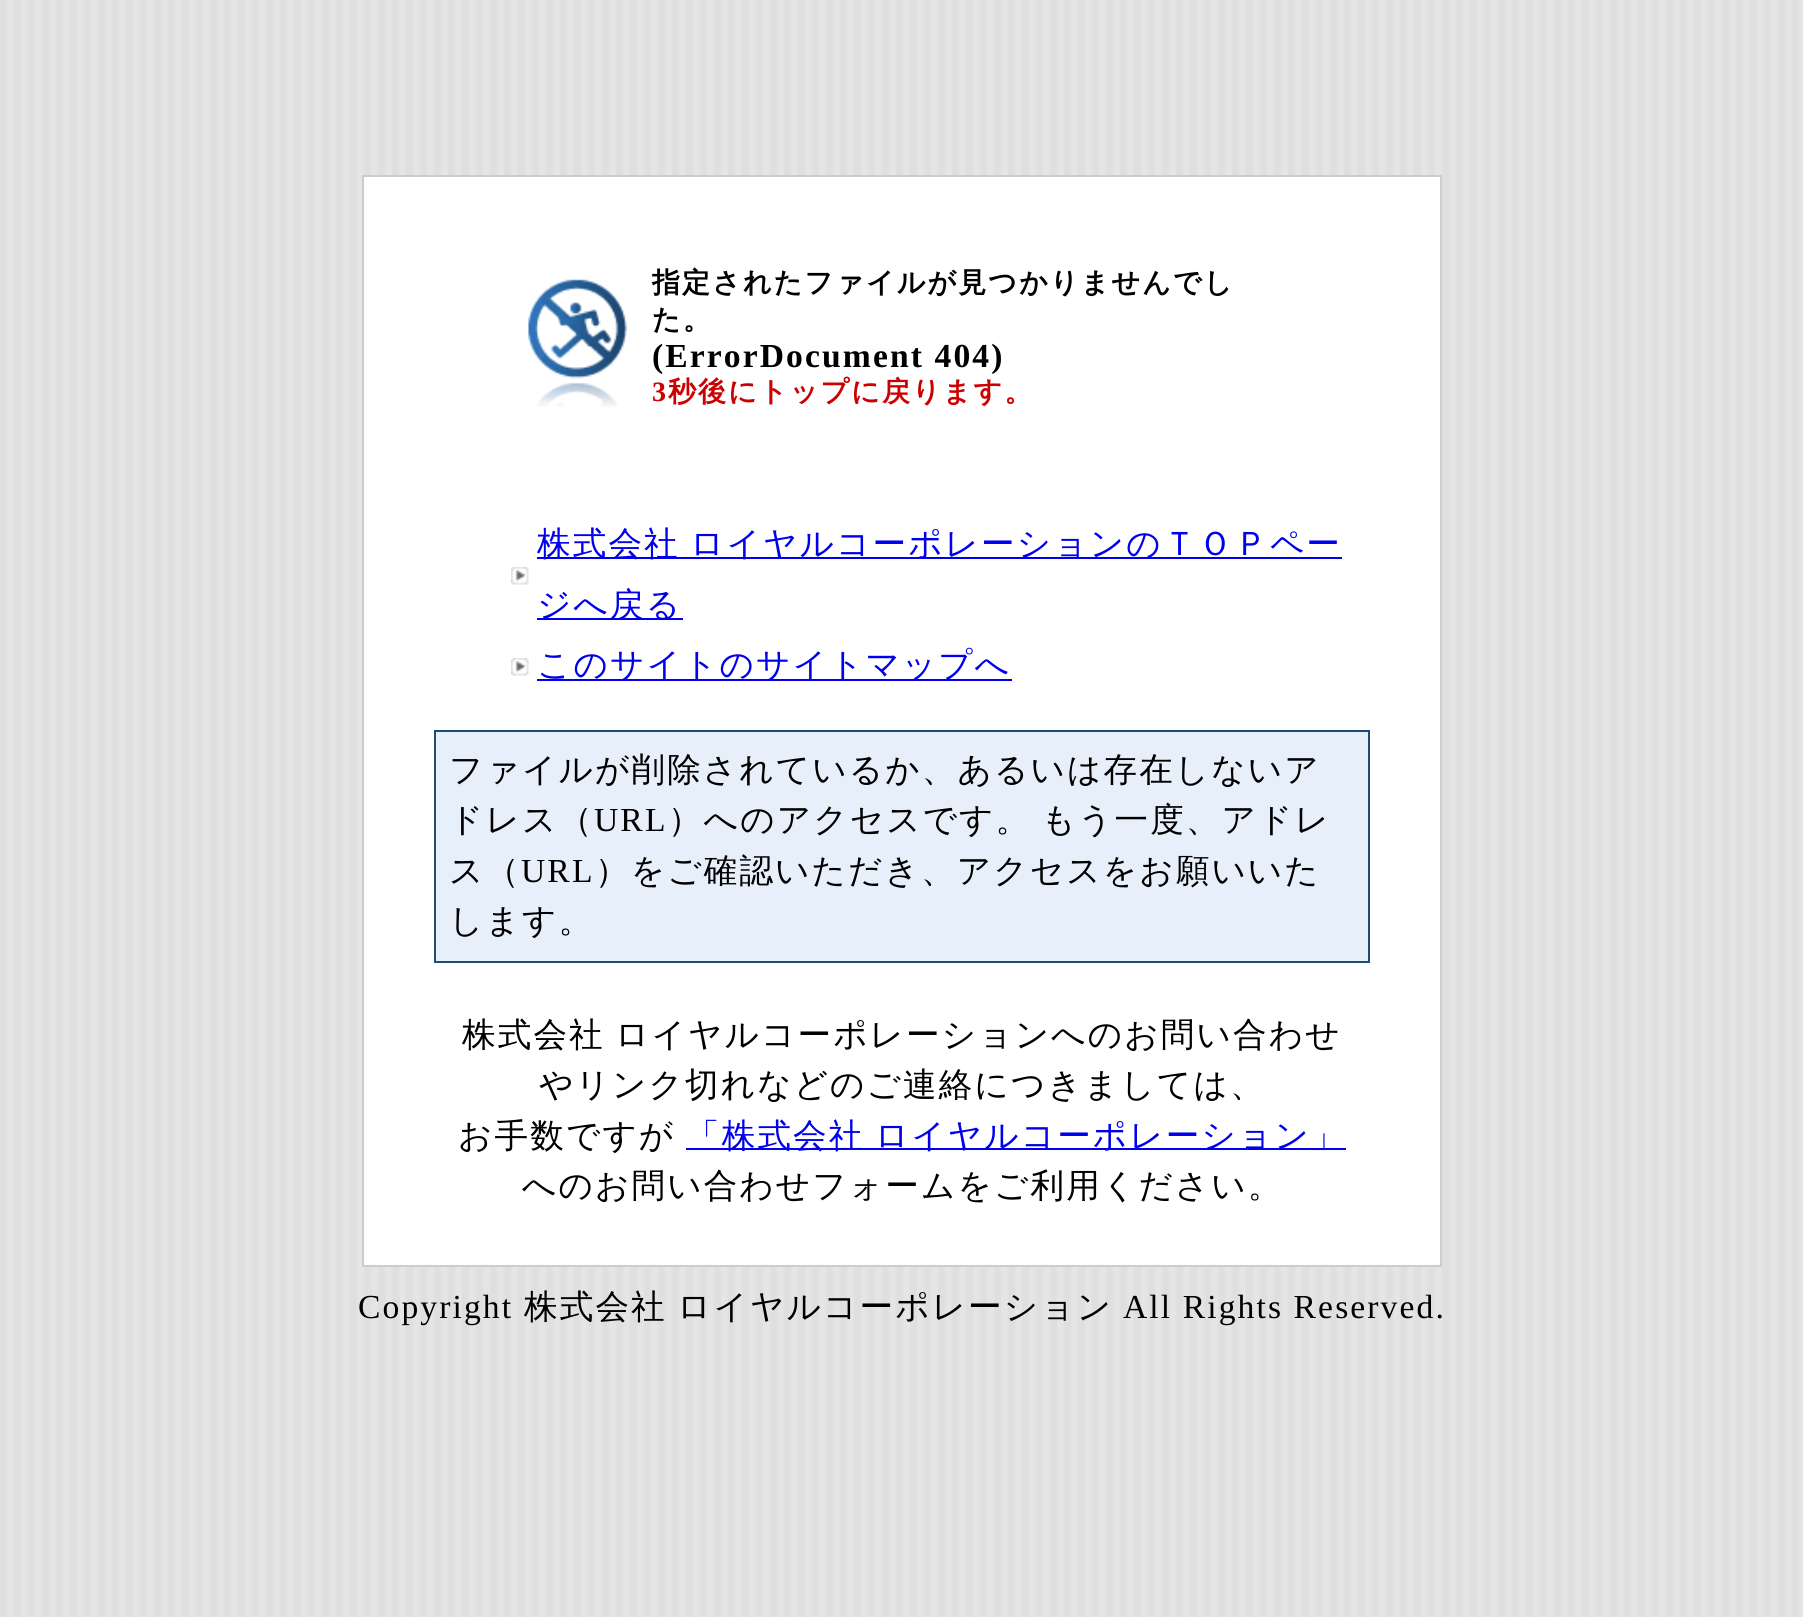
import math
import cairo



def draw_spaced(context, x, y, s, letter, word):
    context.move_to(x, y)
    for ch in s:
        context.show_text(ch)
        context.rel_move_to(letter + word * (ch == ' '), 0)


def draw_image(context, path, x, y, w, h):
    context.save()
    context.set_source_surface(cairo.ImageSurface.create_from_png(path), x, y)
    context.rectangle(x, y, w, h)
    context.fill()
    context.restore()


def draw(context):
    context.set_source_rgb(1, 1, 1)
    context.paint()
    draw_image(context, "images/1.png", 0, 0, 1803, 1617)
    context.set_source_rgb(1, 1, 1)
    context.rectangle(363, 176, 1078, 1090)
    context.fill_preserve()
    context.set_source_rgb(204 / 255, 204 / 255, 204 / 255)
    context.stroke()
    draw_image(context, "images/2.png", 528, 279, 99, 128)
    draw_image(context, "images/3.png", 511, 567, 18, 18)
    context.set_source_rgb(0, 0, 238 / 255)
    context.rectangle(537, 557, 805, 2)
    context.fill()
    context.rectangle(537, 618, 146, 2)
    context.fill()
    draw_image(context, "images/3.png", 511, 658, 18, 18)
    context.rectangle(537, 679, 475, 2)
    context.fill()
    context.set_source_rgb(231 / 255, 240 / 255, 250 / 255)
    context.rectangle(435, 731, 934, 231)
    context.fill_preserve()
    context.set_source_rgb(30 / 255, 76 / 255, 121 / 255)
    context.stroke()
    context.set_source_rgb(0, 0, 238 / 255)
    context.rectangle(686, 1148, 660, 2)
    context.fill()
    context.select_font_face("WenQuanYi Zen Hei", cairo.FontSlant.NORMAL, cairo.FontWeight.BOLD)
    context.set_font_size(28)
    context.set_source_rgb(0, 0, 0)
    draw_spaced(context, 652, 292, "指定されたファイルが見つかりませんでし", 2.1, 0)
    draw_spaced(context, 652, 329, "た。", 2.1, 0)
    context.select_font_face("Liberation Serif", cairo.FontSlant.NORMAL, cairo.FontWeight.BOLD)
    context.set_font_size(33.6)
    draw_spaced(context, 652, 367, "(ErrorDocument 404)", 2.1, 0)
    context.set_font_size(28)
    context.set_source_rgb(204 / 255, 0, 0)
    draw_spaced(context, 652, 401, "3", 2.1, 0)
    context.select_font_face("WenQuanYi Zen Hei", cairo.FontSlant.NORMAL, cairo.FontWeight.BOLD)
    draw_spaced(context, 668, 401, "秒後にトップに戻ります。", 2.1, 0)
    context.select_font_face("WenQuanYi Zen Hei Medium")
    context.set_font_size(33.6)
    context.set_source_rgb(0, 0, 238 / 255)
    draw_spaced(context, 537, 555, "株式会社 ロイヤルコーポレーションのＴＯＰペー", 2.1, -2)
    draw_spaced(context, 537, 616, "ジへ戻る", 2.1, 0)
    draw_spaced(context, 537, 676, "このサイトのサイトマップへ", 2.1, 0)
    context.set_source_rgb(0, 0, 0)
    draw_spaced(context, 449, 781, "ファイルが削除されているか、あるいは存在しないア", 2.1, 0)
    draw_spaced(context, 449, 831, "ドレス（", 2.1, 0)
    context.select_font_face("Liberation Serif")
    draw_spaced(context, 594, 831, "URL", 2.1, 0)
    context.select_font_face("WenQuanYi Zen Hei Medium")
    draw_spaced(context, 668, 831, "）へのアクセスです。 もう一度、アドレ", 2.1, -2)
    draw_spaced(context, 449, 882, "ス（", 2.1, 0)
    context.select_font_face("Liberation Serif")
    draw_spaced(context, 521, 882, "URL", 2.1, 0)
    context.select_font_face("WenQuanYi Zen Hei Medium")
    draw_spaced(context, 595, 882, "）をご確認いただき、アクセスをお願いいた", 2.1, 0)
    draw_spaced(context, 449, 932, "します。", 2.1, 0)
    draw_spaced(context, 462, 1046, "株式会社 ロイヤルコーポレーションへのお問い合わせ", 2.1, -2)
    draw_spaced(context, 539, 1096, "やリンク切れなどのご連絡につきましては、", 2.1, 0)
    draw_spaced(context, 458, 1147, "お手数ですが", 2.1, 0)
    context.set_source_rgb(0, 0, 238 / 255)
    draw_spaced(context, 686, 1147, "「株式会社 ロイヤルコーポレーション」", 2.1, -2)
    context.set_source_rgb(0, 0, 0)
    draw_spaced(context, 522, 1197, "へのお問い合わせフォームをご利用ください。", 2.1, 0)
    context.select_font_face("Liberation Serif")
    draw_spaced(context, 358, 1318, "Copyright", 2.1, 0)
    context.select_font_face("WenQuanYi Zen Hei Medium")
    draw_spaced(context, 524, 1318, "株式会社", 2.1, 0)
    draw_spaced(context, 677, 1318, "ロイヤルコーポレーション", 2.1, 0)
    context.select_font_face("Liberation Serif")
    draw_spaced(context, 1123, 1318, "All Rights Reserved.", 2.1, 0)


surface = cairo.ImageSurface(cairo.Format.RGB24, 1803, 1617)
context = cairo.Context(surface)
options = cairo.FontOptions()
options.set_hint_metrics(cairo.HintMetrics.OFF)
options.set_hint_style(cairo.HintStyle.NONE)
context.set_font_options(options)
context.set_miter_limit(4)
draw(context)
surface.write_to_png("out.png")
